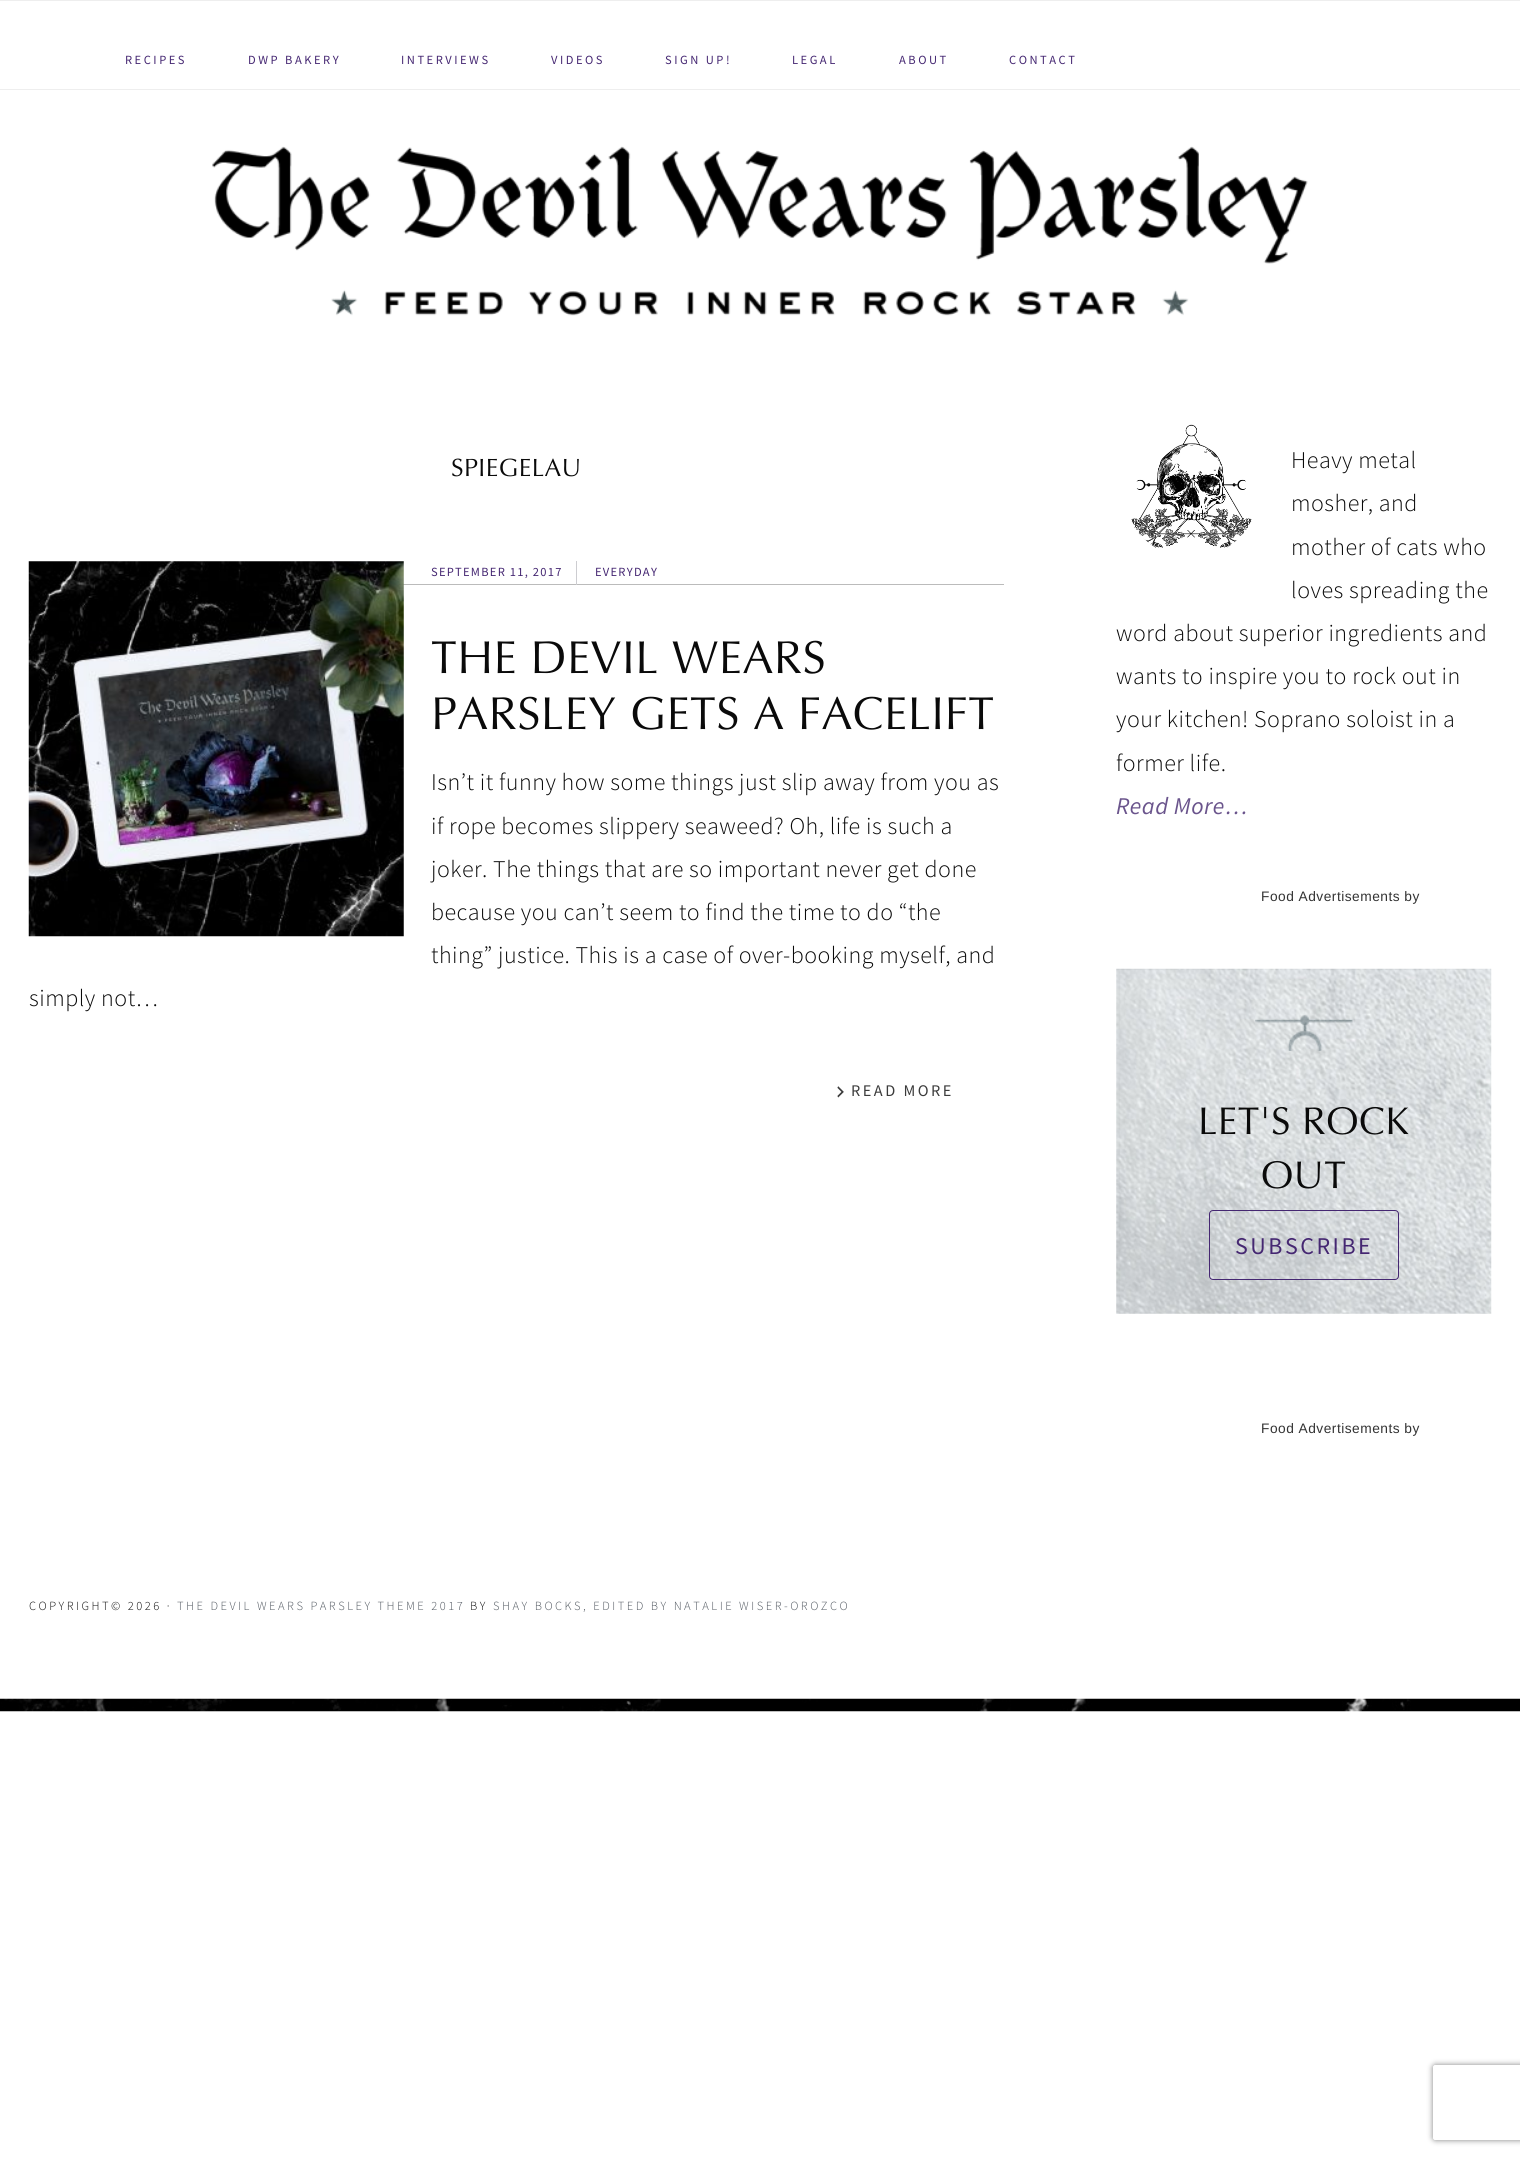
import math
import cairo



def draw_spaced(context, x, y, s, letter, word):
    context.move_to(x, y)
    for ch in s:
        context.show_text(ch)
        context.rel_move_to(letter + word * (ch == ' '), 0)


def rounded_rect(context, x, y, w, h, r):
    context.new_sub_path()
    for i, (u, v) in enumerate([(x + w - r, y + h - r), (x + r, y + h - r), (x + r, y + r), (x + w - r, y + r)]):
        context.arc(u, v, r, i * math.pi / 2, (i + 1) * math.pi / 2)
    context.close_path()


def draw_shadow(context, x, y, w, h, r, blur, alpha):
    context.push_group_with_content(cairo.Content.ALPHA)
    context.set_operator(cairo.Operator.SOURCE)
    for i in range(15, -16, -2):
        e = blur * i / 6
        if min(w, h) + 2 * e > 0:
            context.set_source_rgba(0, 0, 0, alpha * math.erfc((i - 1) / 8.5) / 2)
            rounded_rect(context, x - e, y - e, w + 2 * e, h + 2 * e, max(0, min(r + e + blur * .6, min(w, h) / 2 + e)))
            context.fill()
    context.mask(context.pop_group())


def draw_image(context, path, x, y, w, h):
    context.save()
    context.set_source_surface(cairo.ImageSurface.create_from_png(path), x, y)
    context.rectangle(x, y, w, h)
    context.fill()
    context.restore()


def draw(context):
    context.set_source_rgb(1, 1, 1)
    context.paint()
    context.set_source_rgb(238 / 255, 238 / 255, 238 / 255)
    context.rectangle(0, 0, 1520, 1)
    context.fill()
    context.rectangle(0, 89, 1520, 1)
    context.fill()
    draw_image(context, "images/1.png", 212, 146, 1096, 170)
    context.set_source_rgb(187 / 255, 187 / 255, 187 / 255)
    context.rectangle(403, 584, 601, 1)
    context.fill()
    draw_image(context, "images/2.png", 28, 561, 376, 376)
    context.set_source_rgb(205 / 255, 205 / 255, 209 / 255)
    context.rectangle(576, 561, 1, 24)
    context.fill()
    draw_image(context, "images/3.png", 837, 1086, 7, 12)
    draw_image(context, "images/4.png", 1131, 424, 121, 124)
    draw_image(context, "images/5.png", 1116, 968, 376, 346)
    draw_image(context, "images/6.png", 1255, 1015, 98, 36)
    rounded_rect(context, 1209.5, 1210.5, 189, 69, 3.5)
    context.set_source_rgb(69 / 255, 39 / 255, 114 / 255)
    context.set_line_width(1)
    context.stroke()
    draw_image(context, "images/7.png", 0, 1698, 1520, 14)
    context.save()
    context.set_fill_rule(cairo.FillRule.EVEN_ODD)
    context.new_path()
    context.move_to(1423, 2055)
    context.line_to(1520, 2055)
    context.line_to(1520, 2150)
    context.line_to(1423, 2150)
    context.close_path()
    context.move_to(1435.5, 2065)
    context.line_to(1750.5, 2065)
    context.curve_to(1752, 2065, 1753, 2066, 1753, 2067.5)
    context.line_to(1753, 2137.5)
    context.curve_to(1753, 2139, 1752, 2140, 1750.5, 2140)
    context.line_to(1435.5, 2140)
    context.curve_to(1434, 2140, 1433, 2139, 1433, 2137.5)
    context.line_to(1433, 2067.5)
    context.curve_to(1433, 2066, 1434, 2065, 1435.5, 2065)
    context.close_path()
    context.clip()
    context.set_source_rgb(128 / 255, 128 / 255, 128 / 255)
    draw_shadow(context, 1433, 2065, 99, 75, 2.5, 3, 1)
    context.restore()
    context.select_font_face("Source Sans Pro")
    context.set_font_size(12.5)
    draw_spaced(context, 125, 64, "RECIPES", 2.5, 0)
    draw_spaced(context, 248, 64, "DWP BAKERY", 2.5, 0)
    draw_spaced(context, 401, 64, "INTERVIEWS", 2.5, 0)
    draw_spaced(context, 551, 64, "VIDEOS", 2.5, 0)
    draw_spaced(context, 665, 64, "SIGN UP!", 2.5, 0)
    draw_spaced(context, 792, 64, "LEGAL", 2.5, 0)
    draw_spaced(context, 899, 64, "ABOUT", 2.5, 0)
    draw_spaced(context, 1009, 64, "CONTACT", 2.5, 0)
    context.select_font_face("Optima")
    context.set_font_size(25)
    context.set_source_rgb(10 / 255, 10 / 255, 10 / 255)
    draw_spaced(context, 451, 476, "SPIEGELAU", 0.48, 0)
    context.select_font_face("Source Sans Pro")
    context.set_font_size(12.5)
    context.set_source_rgb(69 / 255, 39 / 255, 114 / 255)
    draw_spaced(context, 431, 576, "SEPTEMBER 11, 2017", 1.25, 0)
    draw_spaced(context, 595, 576, "EVERYDAY", 1.25, 0)
    context.select_font_face("Optima")
    context.set_font_size(46.25)
    context.set_source_rgb(10 / 255, 10 / 255, 10 / 255)
    draw_spaced(context, 431, 673, "THE DEVIL WEARS", 0.48, 0)
    draw_spaced(context, 431, 729, "PARSLEY GETS A FACELIFT", 0.48, 0)
    context.select_font_face("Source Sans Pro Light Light")
    context.set_font_size(24)
    draw_spaced(context, 431, 790, "Isn’t it funny how some things just slip away from you as", 0.48, 0)
    draw_spaced(context, 431, 834, "if rope becomes slippery seaweed? Oh, life is such a", 0.48, 0)
    draw_spaced(context, 431, 877, "joker. The things that are so important never get done", 0.48, 0)
    draw_spaced(context, 431, 920, "because you can’t seem to find the time to do “the", 0.48, 0)
    draw_spaced(context, 431, 963, "thing” justice. This is a case of over-booking myself, and", 0.48, 0)
    draw_spaced(context, 29, 1006, "simply not…", 0.48, 0)
    context.select_font_face("Source Sans Pro")
    context.set_font_size(16.25)
    context.set_source_rgb(59 / 255, 59 / 255, 59 / 255)
    draw_spaced(context, 851, 1096, "READ MORE", 2.5, 0)
    context.select_font_face("Source Sans Pro Light Light")
    context.set_font_size(24)
    context.set_source_rgb(10 / 255, 10 / 255, 10 / 255)
    draw_spaced(context, 1291, 468, "Heavy metal", 0.48, 0)
    draw_spaced(context, 1291, 511, "mosher, and", 0.48, 0)
    draw_spaced(context, 1291, 555, "mother of cats who", 0.48, 0)
    draw_spaced(context, 1291, 598, "loves spreading the", 0.48, 0)
    draw_spaced(context, 1116, 641, "word about superior ingredients and", 0.48, 0)
    draw_spaced(context, 1116, 684, "wants to inspire you to rock out in", 0.48, 0)
    draw_spaced(context, 1116, 727, "your kitchen! Soprano soloist in a", 0.48, 0)
    draw_spaced(context, 1116, 771, "former life.", 0.48, 0)
    context.select_font_face("Source Sans Pro", cairo.FontSlant.ITALIC)
    context.set_source_rgb(106 / 255, 84 / 255, 140 / 255)
    draw_spaced(context, 1116, 814, "Read More…", 0.48, 0)
    context.select_font_face("Liberation Sans")
    context.set_font_size(13.75)
    context.set_source_rgb(51 / 255, 51 / 255, 51 / 255)
    draw_spaced(context, 1261, 901, "Food Advertisements by", 0.48, 0)
    context.select_font_face("Optima")
    context.set_font_size(38.75)
    context.set_source_rgb(10 / 255, 10 / 255, 10 / 255)
    draw_spaced(context, 1198, 1134, "LET'S ROCK", 0.48, 0)
    draw_spaced(context, 1261, 1188, "OUT", 0.48, 0)
    context.select_font_face("Source Sans Pro")
    context.set_font_size(24)
    context.set_source_rgb(69 / 255, 39 / 255, 114 / 255)
    draw_spaced(context, 1235, 1254, "SUBSCRIBE", 2.5, 0)
    context.select_font_face("Liberation Sans")
    context.set_font_size(13.75)
    context.set_source_rgb(51 / 255, 51 / 255, 51 / 255)
    draw_spaced(context, 1261, 1433, "Food Advertisements by", 0.48, 0)
    context.select_font_face("Source Sans Pro Light Light")
    context.set_font_size(12.5)
    context.set_source_rgb(10 / 255, 10 / 255, 10 / 255)
    draw_spaced(context, 29, 1610, "COPYRIGHT© 2026 ·", 2.5, 0)
    context.set_source_rgb(80 / 255, 87 / 255, 95 / 255)
    draw_spaced(context, 177, 1610, "THE DEVIL WEARS PARSLEY THEME 2017", 2.5, 0)
    context.set_source_rgb(10 / 255, 10 / 255, 10 / 255)
    draw_spaced(context, 470, 1610, "BY", 2.5, 0)
    context.set_source_rgb(80 / 255, 87 / 255, 95 / 255)
    draw_spaced(context, 493, 1610, "SHAY BOCKS, EDITED BY NATALIE WISER-OROZCO", 2.5, 0)


surface = cairo.ImageSurface(cairo.Format.RGB24, 1520, 2157)
context = cairo.Context(surface)
options = cairo.FontOptions()
options.set_hint_metrics(cairo.HintMetrics.OFF)
options.set_hint_style(cairo.HintStyle.NONE)
context.set_font_options(options)
context.set_miter_limit(4)
draw(context)
surface.write_to_png("out.png")
